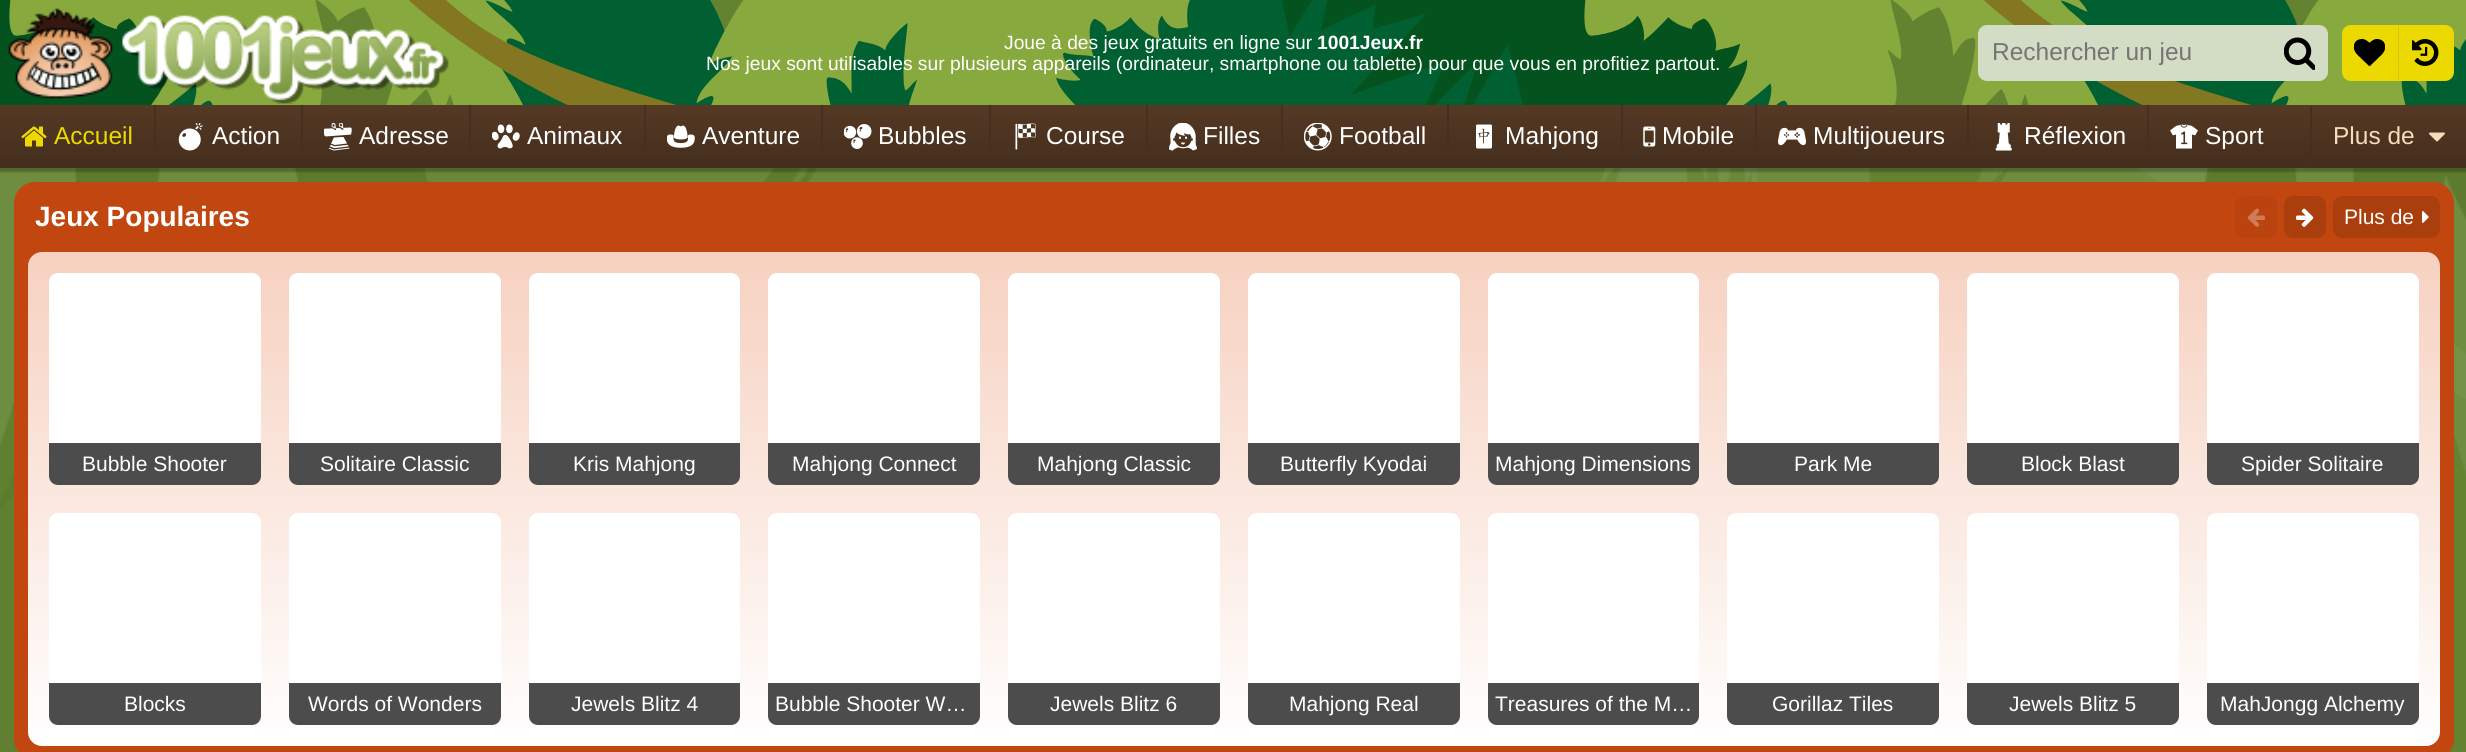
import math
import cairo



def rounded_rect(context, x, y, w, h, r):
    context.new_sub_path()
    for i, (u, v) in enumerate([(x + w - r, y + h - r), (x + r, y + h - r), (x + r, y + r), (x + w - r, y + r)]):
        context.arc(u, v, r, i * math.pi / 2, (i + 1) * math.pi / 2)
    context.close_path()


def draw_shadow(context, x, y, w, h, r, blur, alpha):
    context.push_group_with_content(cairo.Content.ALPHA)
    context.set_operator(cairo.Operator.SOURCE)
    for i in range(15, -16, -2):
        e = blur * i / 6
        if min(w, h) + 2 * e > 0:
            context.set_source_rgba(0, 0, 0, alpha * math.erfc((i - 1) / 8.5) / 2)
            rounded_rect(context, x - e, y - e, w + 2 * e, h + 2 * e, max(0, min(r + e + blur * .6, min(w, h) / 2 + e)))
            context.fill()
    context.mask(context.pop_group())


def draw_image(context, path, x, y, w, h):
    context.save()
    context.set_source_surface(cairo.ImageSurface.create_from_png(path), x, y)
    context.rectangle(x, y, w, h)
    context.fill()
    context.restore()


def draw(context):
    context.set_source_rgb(99 / 255, 131 / 255, 49 / 255)
    context.paint()
    draw_image(context, "images/21.png", 0, 168, 2466, 584)
    context.set_source_rgb(0, 0, 0)
    draw_shadow(context, -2, 105, 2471, 67, 0, 1, 0.25)
    context.set_source_rgb(99 / 255, 131 / 255, 49 / 255)
    context.rectangle(315, 104, 2004, 1)
    context.fill()
    draw_image(context, "images/1.png", 0, 0, 2466, 105)
    draw_image(context, "images/2.png", 8, 8, 441, 96)
    context.set_source_rgb(211 / 255, 220 / 255, 196 / 255)
    rounded_rect(context, 1978, 25, 350, 56, 9)
    context.fill()
    draw_image(context, "images/3.png", 2284, 37, 31, 33)
    context.set_source_rgb(236 / 255, 217 / 255, 1 / 255)
    context.new_path()
    context.move_to(2351, 25)
    context.line_to(2398, 25)
    context.line_to(2398, 81)
    context.line_to(2351, 81)
    context.curve_to(2346, 81, 2342, 77, 2342, 72)
    context.line_to(2342, 34)
    context.curve_to(2342, 29, 2346, 25, 2351, 25)
    context.close_path()
    context.fill()
    draw_image(context, "images/4.png", 2354, 39, 31, 27)
    context.new_path()
    context.move_to(2398, 25)
    context.line_to(2445, 25)
    context.curve_to(2450, 25, 2454, 29, 2454, 34)
    context.line_to(2454, 72)
    context.curve_to(2454, 77, 2450, 81, 2445, 81)
    context.line_to(2398, 81)
    context.close_path()
    context.fill()
    context.set_source_rgb(216 / 255, 198 / 255, 1 / 255)
    context.new_path()
    context.move_to(2399, 26)
    context.line_to(2398, 25)
    context.line_to(2398, 80)
    context.line_to(2399, 79)
    context.close_path()
    context.fill()
    draw_image(context, "images/5.png", 2412, 39, 27, 27)
    gradient = cairo.LinearGradient(1234, 105, 1234, 168)
    gradient.add_color_stop_rgba(0, 85 / 255, 57 / 255, 36 / 255, 1)
    gradient.add_color_stop_rgba(1, 68 / 255, 46 / 255, 29 / 255, 1)
    context.set_source(gradient)
    context.rectangle(0, 105, 2466, 63)
    context.fill()
    draw_image(context, "images/6.png", 21, 126, 26, 21)
    context.set_source_rgb(70 / 255, 47 / 255, 30 / 255)
    context.rectangle(154, 105, 2, 46)
    context.fill()
    draw_image(context, "images/7.png", 178, 123, 25, 28)
    context.rectangle(301, 105, 2, 46)
    context.fill()
    draw_image(context, "images/8.png", 324, 123, 28, 28)
    context.rectangle(469, 105, 2, 46)
    context.fill()
    draw_image(context, "images/9.png", 492, 124, 28, 25)
    context.rectangle(644, 105, 2, 46)
    context.fill()
    draw_image(context, "images/10.png", 667, 125, 28, 23)
    context.rectangle(821, 105, 2, 46)
    context.fill()
    draw_image(context, "images/11.png", 844, 124, 28, 25)
    context.rectangle(989, 105, 2, 46)
    context.fill()
    draw_image(context, "images/12.png", 1015, 123, 21, 27)
    context.rectangle(1146, 105, 2, 46)
    context.fill()
    draw_image(context, "images/13.png", 1169, 123, 28, 28)
    context.rectangle(1281, 105, 2, 46)
    context.fill()
    draw_image(context, "images/14.png", 1304, 123, 28, 28)
    context.rectangle(1447, 105, 2, 46)
    context.fill()
    draw_image(context, "images/15.png", 1476, 124, 16, 25)
    context.rectangle(1621, 105, 2, 46)
    context.fill()
    draw_image(context, "images/16.png", 1643, 126, 13, 21)
    context.rectangle(1755, 105, 2, 46)
    context.fill()
    draw_image(context, "images/17.png", 1778, 127, 28, 19)
    context.rectangle(1967, 105, 2, 46)
    context.fill()
    draw_image(context, "images/18.png", 1995, 123, 17, 28)
    context.rectangle(2147, 105, 2, 46)
    context.fill()
    draw_image(context, "images/19.png", 2170, 124, 28, 25)
    context.new_path()
    context.move_to(2310, 168)
    context.line_to(2310, 105)
    context.line_to(2312, 107)
    context.line_to(2312, 166)
    context.close_path()
    context.fill()
    draw_image(context, "images/20.png", 2429, 132, 16, 10)
    context.set_source_rgb(194 / 255, 70 / 255, 15 / 255)
    rounded_rect(context, 14, 182, 2440, 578, 21)
    context.fill()
    context.set_source_rgb(187 / 255, 67 / 255, 15 / 255)
    rounded_rect(context, 2235, 196, 42, 42, 9)
    context.fill()
    draw_image(context, "images/22.png", 2247, 208, 18, 19)
    context.set_source_rgb(171 / 255, 62 / 255, 13 / 255)
    rounded_rect(context, 2284, 196, 42, 42, 9)
    context.fill()
    draw_image(context, "images/23.png", 2296, 208, 18, 19)
    rounded_rect(context, 2333, 196, 107, 42, 9)
    context.fill()
    draw_image(context, "images/24.png", 2422, 211, 7, 12)
    gradient = cairo.LinearGradient(1234, 252, 1234, 746)
    gradient.add_color_stop_rgba(0, 246 / 255, 209 / 255, 192 / 255, 1)
    gradient.add_color_stop_rgba(1, 1, 1, 1, 1)
    context.set_source(gradient)
    rounded_rect(context, 28, 252, 2412, 494, 14)
    context.fill()
    context.set_source_rgb(1, 1, 1)
    rounded_rect(context, 49, 273, 212, 212, 9)
    context.fill()
    context.set_source_rgba(0, 0, 0, 0.7)
    context.new_path()
    context.move_to(49, 443)
    context.line_to(261, 443)
    context.line_to(261, 476)
    context.curve_to(261, 481, 257, 485, 252, 485)
    context.line_to(58, 485)
    context.curve_to(53, 485, 49, 481, 49, 476)
    context.close_path()
    context.fill()
    context.set_source_rgb(1, 1, 1)
    rounded_rect(context, 289, 273, 212, 212, 9)
    context.fill()
    context.set_source_rgba(0, 0, 0, 0.7)
    context.new_path()
    context.move_to(289, 443)
    context.line_to(501, 443)
    context.line_to(501, 476)
    context.curve_to(501, 481, 497, 485, 492, 485)
    context.line_to(298, 485)
    context.curve_to(293, 485, 289, 481, 289, 476)
    context.close_path()
    context.fill()
    context.set_source_rgb(1, 1, 1)
    rounded_rect(context, 529, 273, 211, 212, 9)
    context.fill()
    context.set_source_rgba(0, 0, 0, 0.7)
    context.new_path()
    context.move_to(529, 443)
    context.line_to(740, 443)
    context.line_to(740, 476)
    context.curve_to(740, 481, 736, 485, 731, 485)
    context.line_to(538, 485)
    context.curve_to(533, 485, 529, 481, 529, 476)
    context.close_path()
    context.fill()
    context.set_source_rgb(1, 1, 1)
    rounded_rect(context, 768, 273, 212, 212, 9)
    context.fill()
    context.set_source_rgba(0, 0, 0, 0.7)
    context.new_path()
    context.move_to(768, 443)
    context.line_to(980, 443)
    context.line_to(980, 476)
    context.curve_to(980, 481, 976, 485, 971, 485)
    context.line_to(777, 485)
    context.curve_to(772, 485, 768, 481, 768, 476)
    context.close_path()
    context.fill()
    context.set_source_rgb(1, 1, 1)
    rounded_rect(context, 1008, 273, 212, 212, 9)
    context.fill()
    context.set_source_rgba(0, 0, 0, 0.7)
    context.new_path()
    context.move_to(1008, 443)
    context.line_to(1220, 443)
    context.line_to(1220, 476)
    context.curve_to(1220, 481, 1216, 485, 1211, 485)
    context.line_to(1017, 485)
    context.curve_to(1012, 485, 1008, 481, 1008, 476)
    context.close_path()
    context.fill()
    context.set_source_rgb(1, 1, 1)
    rounded_rect(context, 1248, 273, 212, 212, 9)
    context.fill()
    context.set_source_rgba(0, 0, 0, 0.7)
    context.new_path()
    context.move_to(1248, 443)
    context.line_to(1460, 443)
    context.line_to(1460, 476)
    context.curve_to(1460, 481, 1456, 485, 1451, 485)
    context.line_to(1257, 485)
    context.curve_to(1252, 485, 1248, 481, 1248, 476)
    context.close_path()
    context.fill()
    context.set_source_rgb(1, 1, 1)
    rounded_rect(context, 1488, 273, 211, 212, 9)
    context.fill()
    context.set_source_rgba(0, 0, 0, 0.7)
    context.new_path()
    context.move_to(1488, 443)
    context.line_to(1699, 443)
    context.line_to(1699, 476)
    context.curve_to(1699, 481, 1695, 485, 1690, 485)
    context.line_to(1497, 485)
    context.curve_to(1492, 485, 1488, 481, 1488, 476)
    context.close_path()
    context.fill()
    context.set_source_rgb(1, 1, 1)
    rounded_rect(context, 1727, 273, 212, 212, 9)
    context.fill()
    context.set_source_rgba(0, 0, 0, 0.7)
    context.new_path()
    context.move_to(1727, 443)
    context.line_to(1939, 443)
    context.line_to(1939, 476)
    context.curve_to(1939, 481, 1935, 485, 1930, 485)
    context.line_to(1736, 485)
    context.curve_to(1731, 485, 1727, 481, 1727, 476)
    context.close_path()
    context.fill()
    context.set_source_rgb(1, 1, 1)
    rounded_rect(context, 1967, 273, 212, 212, 9)
    context.fill()
    context.set_source_rgba(0, 0, 0, 0.7)
    context.new_path()
    context.move_to(1967, 443)
    context.line_to(2179, 443)
    context.line_to(2179, 476)
    context.curve_to(2179, 481, 2175, 485, 2170, 485)
    context.line_to(1976, 485)
    context.curve_to(1971, 485, 1967, 481, 1967, 476)
    context.close_path()
    context.fill()
    context.set_source_rgb(1, 1, 1)
    rounded_rect(context, 2207, 273, 212, 212, 9)
    context.fill()
    context.set_source_rgba(0, 0, 0, 0.7)
    context.new_path()
    context.move_to(2207, 443)
    context.line_to(2419, 443)
    context.line_to(2419, 476)
    context.curve_to(2419, 481, 2415, 485, 2410, 485)
    context.line_to(2216, 485)
    context.curve_to(2211, 485, 2207, 481, 2207, 476)
    context.close_path()
    context.fill()
    context.set_source_rgb(1, 1, 1)
    rounded_rect(context, 49, 513, 212, 212, 9)
    context.fill()
    context.set_source_rgb(76 / 255, 76 / 255, 76 / 255)
    context.new_path()
    context.move_to(49, 683)
    context.line_to(261, 683)
    context.line_to(261, 716)
    context.curve_to(261, 721, 257, 725, 252, 725)
    context.line_to(58, 725)
    context.curve_to(53, 725, 49, 721, 49, 716)
    context.close_path()
    context.fill()
    context.set_source_rgb(1, 1, 1)
    rounded_rect(context, 289, 513, 212, 212, 9)
    context.fill()
    context.set_source_rgb(76 / 255, 76 / 255, 76 / 255)
    context.new_path()
    context.move_to(289, 683)
    context.line_to(501, 683)
    context.line_to(501, 716)
    context.curve_to(501, 721, 497, 725, 492, 725)
    context.line_to(298, 725)
    context.curve_to(293, 725, 289, 721, 289, 716)
    context.close_path()
    context.fill()
    context.set_source_rgb(1, 1, 1)
    rounded_rect(context, 529, 513, 211, 212, 9)
    context.fill()
    context.set_source_rgb(76 / 255, 76 / 255, 76 / 255)
    context.new_path()
    context.move_to(529, 683)
    context.line_to(740, 683)
    context.line_to(740, 716)
    context.curve_to(740, 721, 736, 725, 731, 725)
    context.line_to(538, 725)
    context.curve_to(533, 725, 529, 721, 529, 716)
    context.close_path()
    context.fill()
    context.set_source_rgb(1, 1, 1)
    rounded_rect(context, 768, 513, 212, 212, 9)
    context.fill()
    context.set_source_rgb(76 / 255, 76 / 255, 76 / 255)
    context.new_path()
    context.move_to(768, 683)
    context.line_to(980, 683)
    context.line_to(980, 716)
    context.curve_to(980, 721, 976, 725, 971, 725)
    context.line_to(777, 725)
    context.curve_to(772, 725, 768, 721, 768, 716)
    context.close_path()
    context.fill()
    context.set_source_rgb(1, 1, 1)
    rounded_rect(context, 1008, 513, 212, 212, 9)
    context.fill()
    context.set_source_rgb(76 / 255, 76 / 255, 76 / 255)
    context.new_path()
    context.move_to(1008, 683)
    context.line_to(1220, 683)
    context.line_to(1220, 716)
    context.curve_to(1220, 721, 1216, 725, 1211, 725)
    context.line_to(1017, 725)
    context.curve_to(1012, 725, 1008, 721, 1008, 716)
    context.close_path()
    context.fill()
    context.set_source_rgb(1, 1, 1)
    rounded_rect(context, 1248, 513, 212, 212, 9)
    context.fill()
    context.set_source_rgb(76 / 255, 76 / 255, 76 / 255)
    context.new_path()
    context.move_to(1248, 683)
    context.line_to(1460, 683)
    context.line_to(1460, 716)
    context.curve_to(1460, 721, 1456, 725, 1451, 725)
    context.line_to(1257, 725)
    context.curve_to(1252, 725, 1248, 721, 1248, 716)
    context.close_path()
    context.fill()
    context.set_source_rgb(1, 1, 1)
    rounded_rect(context, 1488, 513, 211, 212, 9)
    context.fill()
    context.set_source_rgb(76 / 255, 76 / 255, 76 / 255)
    context.new_path()
    context.move_to(1488, 683)
    context.line_to(1699, 683)
    context.line_to(1699, 716)
    context.curve_to(1699, 721, 1695, 725, 1690, 725)
    context.line_to(1497, 725)
    context.curve_to(1492, 725, 1488, 721, 1488, 716)
    context.close_path()
    context.fill()
    context.set_source_rgb(1, 1, 1)
    rounded_rect(context, 1727, 513, 212, 212, 9)
    context.fill()
    context.set_source_rgb(76 / 255, 76 / 255, 76 / 255)
    context.new_path()
    context.move_to(1727, 683)
    context.line_to(1939, 683)
    context.line_to(1939, 716)
    context.curve_to(1939, 721, 1935, 725, 1930, 725)
    context.line_to(1736, 725)
    context.curve_to(1731, 725, 1727, 721, 1727, 716)
    context.close_path()
    context.fill()
    context.set_source_rgb(1, 1, 1)
    rounded_rect(context, 1967, 513, 212, 212, 9)
    context.fill()
    context.set_source_rgb(76 / 255, 76 / 255, 76 / 255)
    context.new_path()
    context.move_to(1967, 683)
    context.line_to(2179, 683)
    context.line_to(2179, 716)
    context.curve_to(2179, 721, 2175, 725, 2170, 725)
    context.line_to(1976, 725)
    context.curve_to(1971, 725, 1967, 721, 1967, 716)
    context.close_path()
    context.fill()
    context.set_source_rgb(1, 1, 1)
    rounded_rect(context, 2207, 513, 212, 212, 9)
    context.fill()
    context.set_source_rgb(76 / 255, 76 / 255, 76 / 255)
    context.new_path()
    context.move_to(2207, 683)
    context.line_to(2419, 683)
    context.line_to(2419, 716)
    context.curve_to(2419, 721, 2415, 725, 2410, 725)
    context.line_to(2216, 725)
    context.curve_to(2211, 725, 2207, 721, 2207, 716)
    context.close_path()
    context.fill()
    context.select_font_face("Liberation Sans")
    context.set_font_size(19.25)
    context.set_source_rgb(1, 1, 1)
    context.move_to(1004, 49)
    context.show_text("Joue à des jeux gratuits en ligne sur")
    context.select_font_face("Liberation Sans", cairo.FontSlant.NORMAL, cairo.FontWeight.BOLD)
    context.move_to(1317, 49)
    context.show_text("1001Jeux.fr")
    context.select_font_face("Liberation Sans")
    context.move_to(706, 70)
    context.show_text("Nos jeux sont utilisables sur plusieurs appareils (ordinateur, smartphone ou tablette) pour que vous en profitiez partout.")
    context.set_font_size(24.5)
    context.set_source_rgb(117 / 255, 117 / 255, 117 / 255)
    context.move_to(1992, 60)
    context.show_text("Rechercher un jeu")
    context.set_source_rgb(236 / 255, 217 / 255, 1 / 255)
    context.move_to(54, 144)
    context.show_text("Accueil")
    context.set_source_rgb(1, 1, 1)
    context.move_to(212, 144)
    context.show_text("Action")
    context.move_to(359, 144)
    context.show_text("Adresse")
    context.move_to(527, 144)
    context.show_text("Animaux")
    context.move_to(702, 144)
    context.show_text("Aventure")
    context.move_to(878, 144)
    context.show_text("Bubbles")
    context.move_to(1046, 144)
    context.show_text("Course")
    context.move_to(1203, 144)
    context.show_text("Filles")
    context.move_to(1339, 144)
    context.show_text("Football")
    context.move_to(1505, 144)
    context.show_text("Mahjong")
    context.move_to(1662, 144)
    context.show_text("Mobile")
    context.move_to(1813, 144)
    context.show_text("Multijoueurs")
    context.move_to(2024, 144)
    context.show_text("Réflexion")
    context.move_to(2205, 144)
    context.show_text("Sport")
    context.set_source_rgb(247 / 255, 220 / 255, 188 / 255)
    context.move_to(2333, 144)
    context.show_text("Plus de")
    context.select_font_face("Liberation Sans", cairo.FontSlant.NORMAL, cairo.FontWeight.BOLD)
    context.set_font_size(28)
    context.set_source_rgb(1, 1, 1)
    context.move_to(35, 226)
    context.show_text("Jeux Populaires")
    context.select_font_face("Liberation Sans")
    context.set_font_size(21)
    context.move_to(2344, 224)
    context.show_text("Plus de")
    context.move_to(82, 471)
    context.show_text("Bubble Shooter")
    context.move_to(320, 471)
    context.show_text("Solitaire Classic")
    context.move_to(573, 471)
    context.show_text("Kris Mahjong")
    context.move_to(792, 471)
    context.show_text("Mahjong Connect")
    context.move_to(1037, 471)
    context.show_text("Mahjong Classic")
    context.move_to(1280, 471)
    context.show_text("Butterfly Kyodai")
    context.move_to(1495, 471)
    context.show_text("Mahjong Dimensions")
    context.move_to(1794, 471)
    context.show_text("Park Me")
    context.move_to(2021, 471)
    context.show_text("Block Blast")
    context.move_to(2241, 471)
    context.show_text("Spider Solitaire")
    context.move_to(124, 711)
    context.show_text("Blocks")
    context.move_to(308, 711)
    context.show_text("Words of Wonders")
    context.move_to(571, 711)
    context.show_text("Jewels Blitz 4")
    context.move_to(775, 711)
    context.show_text("Bubble Shooter W…")
    context.move_to(1050, 711)
    context.show_text("Jewels Blitz 6")
    context.move_to(1289, 711)
    context.show_text("Mahjong Real")
    context.move_to(1495, 711)
    context.show_text("Treasures of the M…")
    context.move_to(1772, 711)
    context.show_text("Gorillaz Tiles")
    context.move_to(2009, 711)
    context.show_text("Jewels Blitz 5")
    context.move_to(2220, 711)
    context.show_text("MahJongg Alchemy")


surface = cairo.ImageSurface(cairo.Format.RGB24, 2466, 752)
context = cairo.Context(surface)
options = cairo.FontOptions()
options.set_hint_metrics(cairo.HintMetrics.OFF)
options.set_hint_style(cairo.HintStyle.NONE)
context.set_font_options(options)
context.set_miter_limit(4)
draw(context)
surface.write_to_png("out.png")
